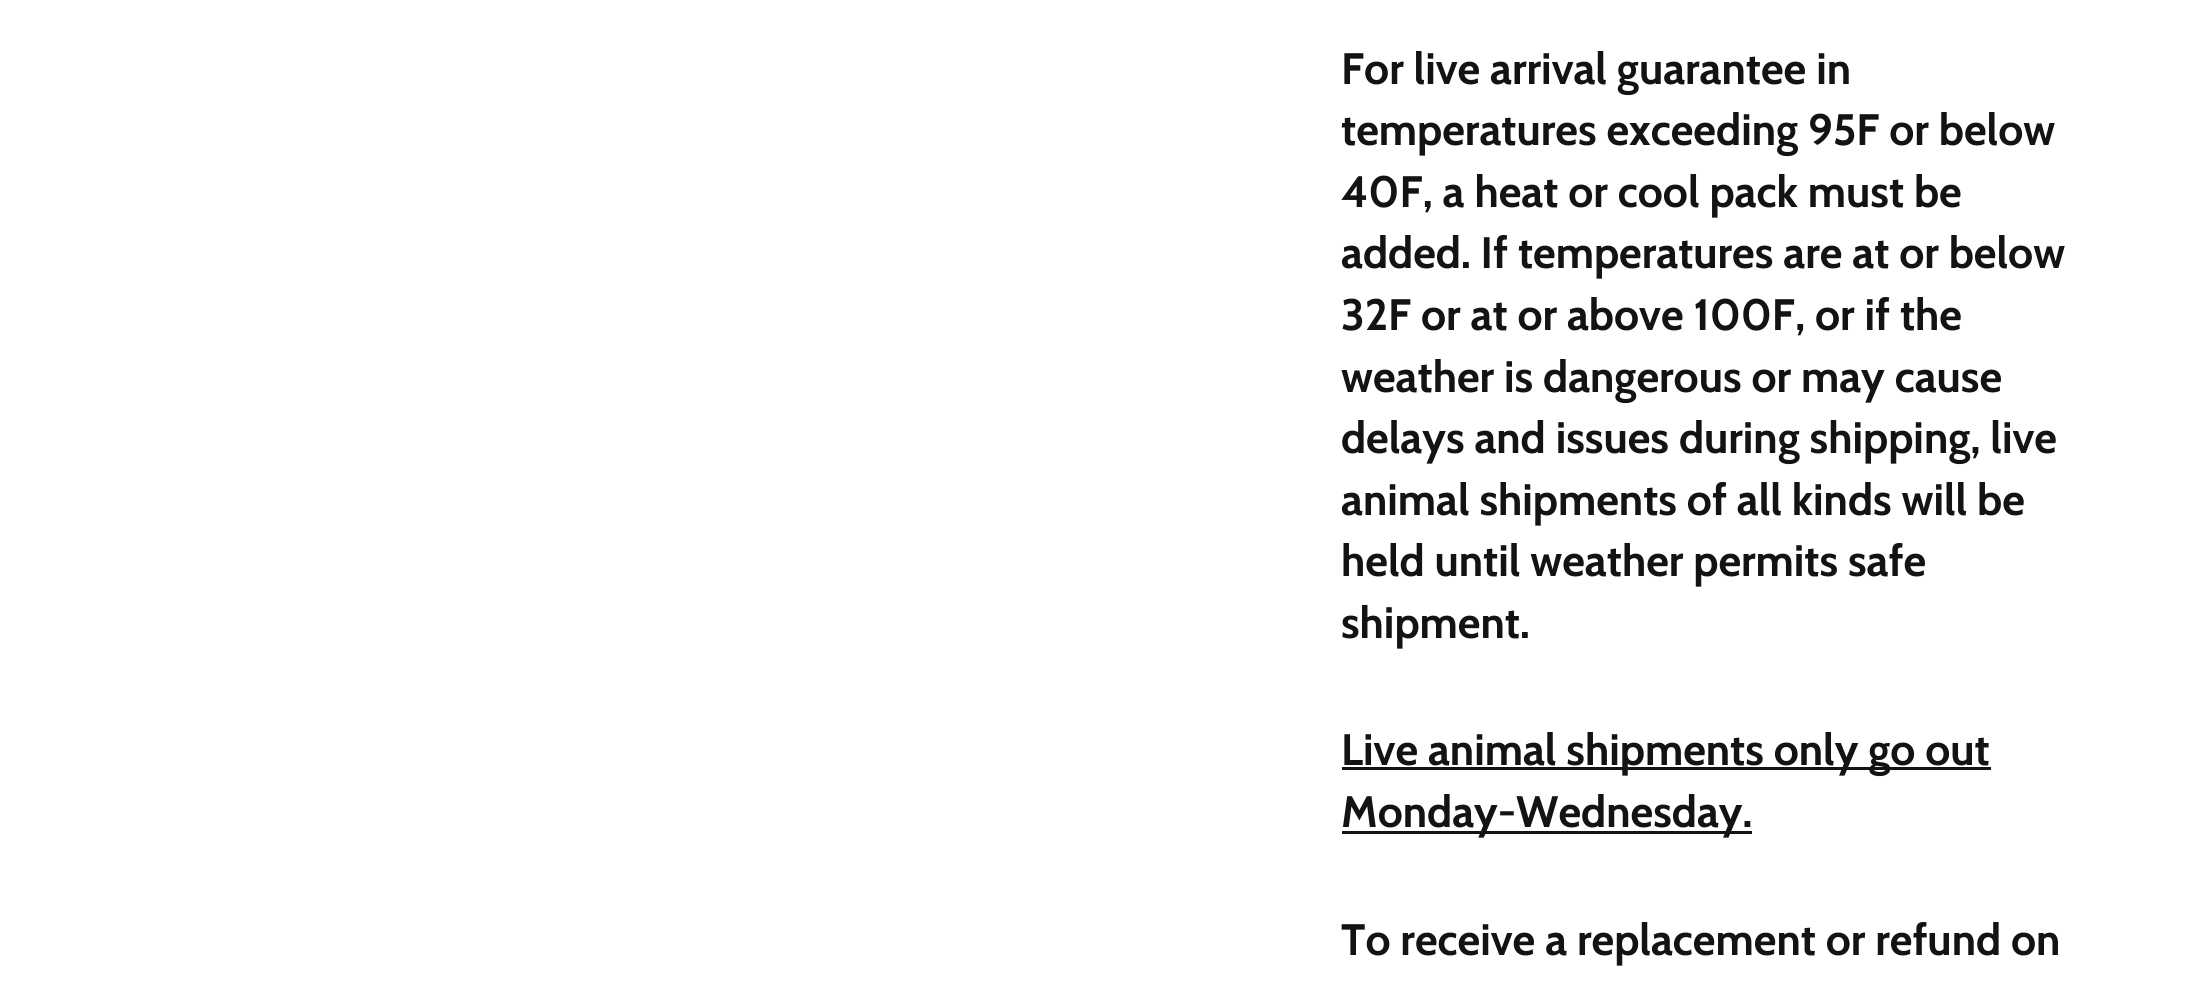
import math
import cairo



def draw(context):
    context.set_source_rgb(1, 1, 1)
    context.paint()
    context.set_source_rgb(19 / 255, 19 / 255, 19 / 255)
    context.rectangle(1342, 767, 649, 3)
    context.fill()
    context.rectangle(1342, 831, 410, 3)
    context.fill()
    context.select_font_face("Cabin", cairo.FontSlant.NORMAL, cairo.FontWeight.BOLD)
    context.set_font_size(44)
    context.move_to(1341, 84)
    context.show_text("For live arrival guarantee in")
    context.move_to(1341, 145)
    context.show_text("temperatures exceeding 95F or below")
    context.move_to(1341, 207)
    context.show_text("40F, a heat or cool pack must be")
    context.move_to(1341, 268)
    context.show_text("added. If temperatures are at or below")
    context.move_to(1341, 330)
    context.show_text("32F or at or above 100F, or if the")
    context.move_to(1341, 392)
    context.show_text("weather is dangerous or may cause")
    context.move_to(1341, 453)
    context.show_text("delays and issues during shipping, live")
    context.move_to(1341, 515)
    context.show_text("animal shipments of all kinds will be")
    context.move_to(1341, 576)
    context.show_text("held until weather permits safe")
    context.move_to(1341, 638)
    context.show_text("shipment.")
    context.move_to(1341, 765)
    context.show_text("Live animal shipments only go out")
    context.move_to(1341, 827)
    context.show_text("Monday-Wednesday.")
    context.move_to(1341, 955)
    context.show_text("To receive a replacement or refund on")


surface = cairo.ImageSurface(cairo.Format.RGB24, 2194, 987)
context = cairo.Context(surface)
options = cairo.FontOptions()
options.set_hint_metrics(cairo.HintMetrics.OFF)
options.set_hint_style(cairo.HintStyle.NONE)
context.set_font_options(options)
context.set_miter_limit(4)
draw(context)
surface.write_to_png("out.png")
